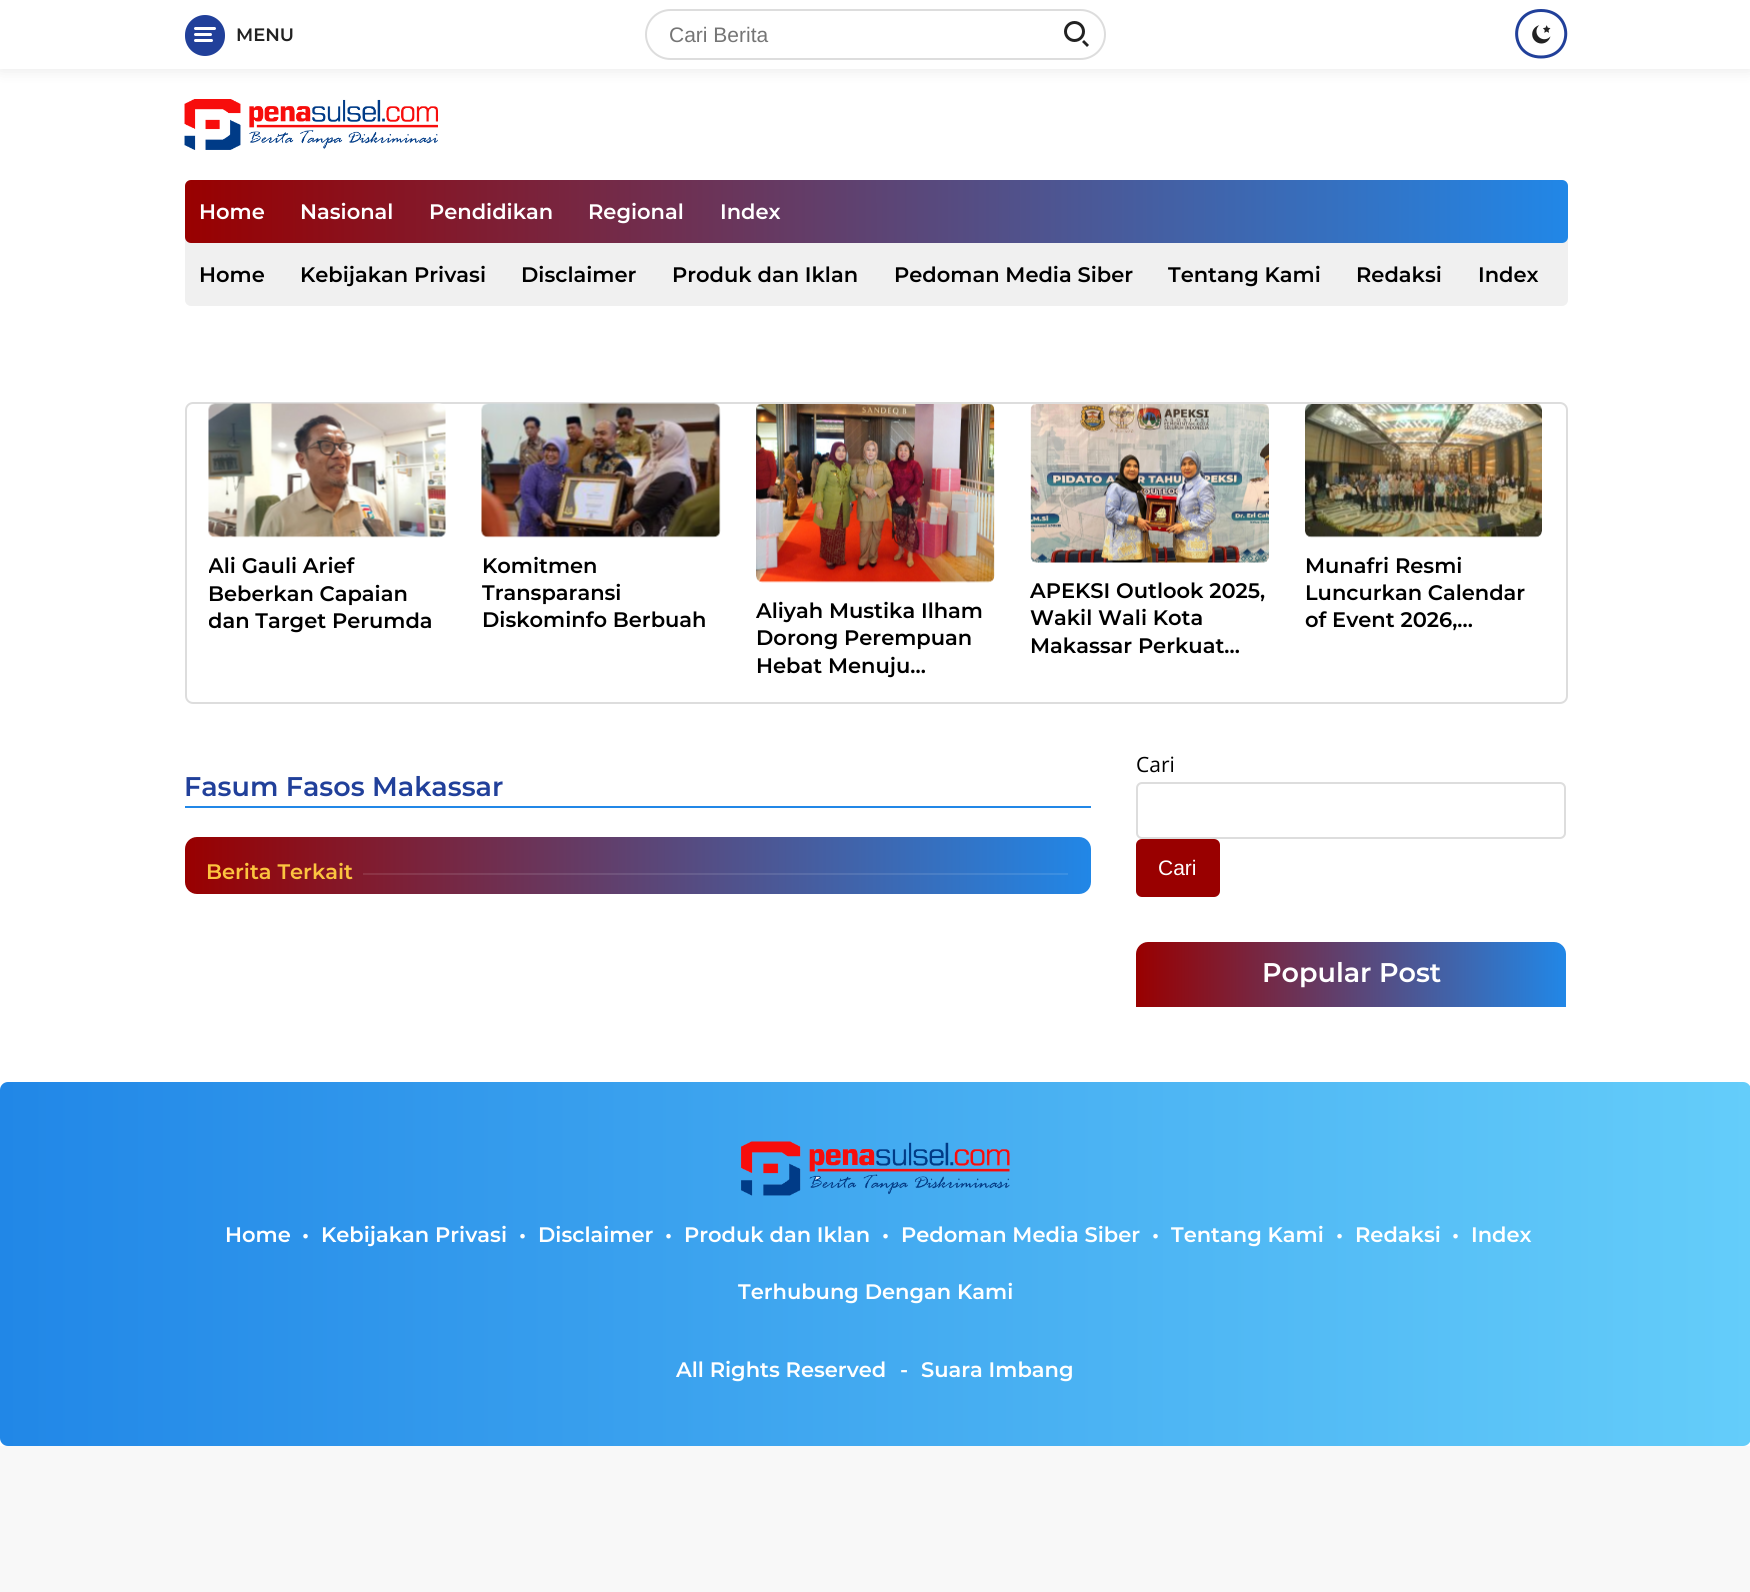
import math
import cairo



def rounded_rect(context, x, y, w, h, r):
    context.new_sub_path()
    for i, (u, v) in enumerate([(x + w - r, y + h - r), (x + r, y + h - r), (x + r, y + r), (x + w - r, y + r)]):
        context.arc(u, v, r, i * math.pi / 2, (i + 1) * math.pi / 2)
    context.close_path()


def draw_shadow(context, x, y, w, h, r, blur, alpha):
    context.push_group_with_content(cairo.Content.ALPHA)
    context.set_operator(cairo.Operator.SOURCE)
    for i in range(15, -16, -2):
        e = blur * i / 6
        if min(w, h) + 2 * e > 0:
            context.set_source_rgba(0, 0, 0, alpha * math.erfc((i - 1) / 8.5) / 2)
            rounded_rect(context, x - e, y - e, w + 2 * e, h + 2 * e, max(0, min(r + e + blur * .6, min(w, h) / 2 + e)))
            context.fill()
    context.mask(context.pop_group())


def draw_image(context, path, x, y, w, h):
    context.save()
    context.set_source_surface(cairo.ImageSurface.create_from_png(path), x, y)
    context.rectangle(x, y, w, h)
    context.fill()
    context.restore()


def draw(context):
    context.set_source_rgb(248 / 255, 248 / 255, 248 / 255)
    context.paint()
    context.set_source_rgb(1, 1, 1)
    context.rectangle(0, 69, 1750, 1377)
    context.fill()
    context.set_source_rgb(0, 0, 0)
    draw_shadow(context, 0, 0, 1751, 69, 0, 7.5, 0.1)
    context.set_source_rgb(1, 1, 1)
    context.rectangle(0, 0, 1750, 69)
    context.fill()
    context.set_source_rgb(33 / 255, 64 / 255, 154 / 255)
    rounded_rect(context, 185, 15, 40, 41, 20)
    context.fill()
    context.set_source_rgb(1, 1, 1)
    rounded_rect(context, 194, 27, 22, 3, 1.5)
    context.fill()
    rounded_rect(context, 194, 33, 18, 3, 1.5)
    context.fill()
    rounded_rect(context, 194, 39, 19, 3, 1.5)
    context.fill()
    rounded_rect(context, 646, 10, 459, 49, 24.5)
    context.set_source_rgb(221 / 255, 221 / 255, 221 / 255)
    context.stroke()
    context.arc(1074.5, 31.5, 9, 0, 2 * math.pi)
    context.set_source_rgb(34 / 255, 34 / 255, 34 / 255)
    context.set_line_width(3)
    context.stroke()
    context.new_path()
    context.move_to(1084, 40)
    context.line_to(1089, 45)
    context.line_to(1087, 47)
    context.line_to(1082, 42)
    context.close_path()
    context.fill()
    context.new_path()
    context.move_to(1541, 10.5)
    context.curve_to(1574, 10.5, 1574, 57, 1541, 57)
    context.curve_to(1508.5, 57, 1508.5, 10.5, 1541, 10.5)
    context.close_path()
    context.set_source_rgb(33 / 255, 64 / 255, 154 / 255)
    context.stroke()
    draw_image(context, "images/1.png", 1532, 25, 19, 19)
    draw_image(context, "images/2.png", 184, 99, 254, 51)
    context.set_source_rgb(240 / 255, 240 / 255, 240 / 255)
    rounded_rect(context, 185, 180, 1383, 126, 6)
    context.fill()
    gradient = cairo.LinearGradient(185, 212, 1568, 211)
    gradient.add_color_stop_rgba(0, 153 / 255, 0, 0, 1)
    gradient.add_color_stop_rgba(1, 33 / 255, 135 / 255, 231 / 255, 1)
    context.set_source(gradient)
    rounded_rect(context, 185, 180, 1383, 63, 6)
    context.fill()
    rounded_rect(context, 186, 403, 1381, 300, 7)
    context.set_source_rgb(221 / 255, 221 / 255, 221 / 255)
    context.set_line_width(2)
    context.stroke()
    draw_image(context, "images/3.png", 208, 403, 238, 135)
    draw_image(context, "images/4.png", 481, 403, 240, 135)
    draw_image(context, "images/5.png", 756, 404, 239, 179)
    draw_image(context, "images/6.png", 1030, 404, 239, 159)
    draw_image(context, "images/7.png", 1305, 404, 237, 134)
    context.set_source_rgb(33 / 255, 135 / 255, 231 / 255)
    context.rectangle(185, 806, 906, 2)
    context.fill()
    gradient = cairo.LinearGradient(185, 866, 1091, 866)
    gradient.add_color_stop_rgba(0, 153 / 255, 0, 0, 1)
    gradient.add_color_stop_rgba(1, 33 / 255, 135 / 255, 231 / 255, 1)
    context.set_source(gradient)
    rounded_rect(context, 185, 837, 906, 57, 12)
    context.fill()
    gradient = cairo.LinearGradient(185, 866, 1091, 866)
    gradient.add_color_stop_rgba(0, 163 / 255, 26 / 255, 26 / 255, 1)
    gradient.add_color_stop_rgba(1, 55 / 255, 147 / 255, 233 / 255, 1)
    context.set_source(gradient)
    context.rectangle(363, 873, 705, 2)
    context.fill()
    rounded_rect(context, 1137, 783, 428, 55, 5)
    context.set_source_rgb(221 / 255, 221 / 255, 221 / 255)
    context.stroke()
    context.set_source_rgb(153 / 255, 0, 0)
    rounded_rect(context, 1136, 839, 84, 58, 6)
    context.fill()
    gradient = cairo.LinearGradient(1136, 974, 1566, 974)
    gradient.add_color_stop_rgba(0, 153 / 255, 0, 0, 1)
    gradient.add_color_stop_rgba(1, 33 / 255, 135 / 255, 231 / 255, 1)
    context.set_source(gradient)
    context.new_path()
    context.move_to(1148, 942)
    context.line_to(1554, 942)
    context.curve_to(1560.5, 942, 1566, 947.5, 1566, 954)
    context.line_to(1566, 1007)
    context.line_to(1136, 1007)
    context.line_to(1136, 954)
    context.curve_to(1136, 947.5, 1141.5, 942, 1148, 942)
    context.close_path()
    context.fill()
    gradient = cairo.LinearGradient(0, 1264, 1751, 1264)
    gradient.add_color_stop_rgba(0, 33 / 255, 135 / 255, 231 / 255, 1)
    gradient.add_color_stop_rgba(1, 100 / 255, 205 / 255, 250 / 255, 1)
    context.set_source(gradient)
    rounded_rect(context, 0, 1082, 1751, 364, 8)
    context.fill()
    draw_image(context, "images/8.png", 741, 1141, 269, 55)
    context.select_font_face("Montserrat SemiBold")
    context.set_font_size(18)
    context.set_source_rgb(34 / 255, 34 / 255, 34 / 255)
    context.move_to(236, 41)
    context.show_text("MENU")
    context.select_font_face("Liberation Sans")
    context.set_font_size(21)
    context.set_source_rgb(117 / 255, 117 / 255, 117 / 255)
    context.move_to(669, 42)
    context.show_text("Cari Berita")
    context.select_font_face("Montserrat SemiBold")
    context.set_source_rgb(1, 1, 1)
    context.move_to(199, 219)
    context.show_text("Home")
    context.move_to(300, 219)
    context.show_text("Nasional")
    context.move_to(429, 219)
    context.show_text("Pendidikan")
    context.move_to(588, 219)
    context.show_text("Regional")
    context.move_to(720, 219)
    context.show_text("Index")
    context.set_source_rgb(0, 0, 0)
    context.move_to(199, 282)
    context.show_text("Home")
    context.move_to(300, 282)
    context.show_text("Kebijakan Privasi")
    context.move_to(521, 282)
    context.show_text("Disclaimer")
    context.move_to(672, 282)
    context.show_text("Produk dan Iklan")
    context.move_to(894, 282)
    context.show_text("Pedoman Media Siber")
    context.move_to(1168, 282)
    context.show_text("Tentang Kami")
    context.move_to(1356, 282)
    context.show_text("Redaksi")
    context.move_to(1478, 282)
    context.show_text("Index")
    context.save()
    context.rectangle(209, 552, 237, 83)
    context.clip()
    context.move_to(208, 573)
    context.show_text("Ali Gauli Arief")
    context.restore()
    context.move_to(208, 601)
    context.show_text("Beberkan Capaian")
    context.save()
    context.rectangle(209, 552, 237, 83)
    context.clip()
    context.move_to(208, 628)
    context.show_text("dan Target Perumda")
    context.restore()
    context.move_to(482, 573)
    context.show_text("Komitmen")
    context.move_to(482, 600)
    context.show_text("Transparansi")
    context.move_to(482, 627)
    context.show_text("Diskominfo Berbuah")
    context.move_to(756, 618)
    context.show_text("Aliyah Mustika Ilham")
    context.move_to(756, 645)
    context.show_text("Dorong Perempuan")
    context.move_to(756, 673)
    context.show_text("Hebat Menuju…")
    context.move_to(1030, 598)
    context.show_text("APEKSI Outlook 2025,")
    context.move_to(1030, 625)
    context.show_text("Wakil Wali Kota")
    context.move_to(1030, 653)
    context.show_text("Makassar Perkuat…")
    context.move_to(1305, 573)
    context.show_text("Munafri Resmi")
    context.move_to(1305, 600)
    context.show_text("Luncurkan Calendar")
    context.move_to(1305, 627)
    context.show_text("of Event 2026,…")
    context.set_font_size(27)
    context.set_source_rgb(33 / 255, 64 / 255, 154 / 255)
    context.move_to(184, 796)
    context.show_text("Fasum Fasos Makassar")
    context.set_font_size(21)
    context.set_source_rgb(252 / 255, 196 / 255, 63 / 255)
    context.move_to(206, 879)
    context.show_text("Berita Terkait")
    context.select_font_face("Open Sans")
    context.set_source_rgb(0, 0, 0)
    context.move_to(1136, 772)
    context.show_text("Cari")
    context.select_font_face("Liberation Sans")
    context.set_source_rgb(1, 1, 1)
    context.move_to(1158, 875)
    context.show_text("Cari")
    context.select_font_face("Montserrat SemiBold")
    context.set_font_size(27)
    context.move_to(1262, 982)
    context.show_text("Popular Post")
    context.set_font_size(21)
    context.move_to(225, 1242)
    context.show_text("Home")
    context.move_to(302, 1242)
    context.show_text("•")
    context.move_to(321, 1242)
    context.show_text("Kebijakan Privasi")
    context.move_to(519, 1242)
    context.show_text("•")
    context.move_to(538, 1242)
    context.show_text("Disclaimer")
    context.move_to(665, 1242)
    context.show_text("•")
    context.move_to(684, 1242)
    context.show_text("Produk dan Iklan")
    context.move_to(882, 1242)
    context.show_text("•")
    context.move_to(901, 1242)
    context.show_text("Pedoman Media Siber")
    context.move_to(1152, 1242)
    context.show_text("•")
    context.move_to(1171, 1242)
    context.show_text("Tentang Kami")
    context.move_to(1336, 1242)
    context.show_text("•")
    context.move_to(1355, 1242)
    context.show_text("Redaksi")
    context.move_to(1452, 1242)
    context.show_text("•")
    context.move_to(1471, 1242)
    context.show_text("Index")
    context.move_to(738, 1299)
    context.show_text("Terhubung Dengan Kami")
    context.move_to(676, 1377)
    context.show_text("All Rights Reserved")
    context.move_to(900, 1377)
    context.show_text("-")
    context.move_to(921, 1377)
    context.show_text("Suara Imbang")


surface = cairo.ImageSurface(cairo.Format.RGB24, 1750, 1592)
context = cairo.Context(surface)
options = cairo.FontOptions()
options.set_hint_metrics(cairo.HintMetrics.OFF)
options.set_hint_style(cairo.HintStyle.NONE)
context.set_font_options(options)
context.set_miter_limit(4)
draw(context)
surface.write_to_png("out.png")
